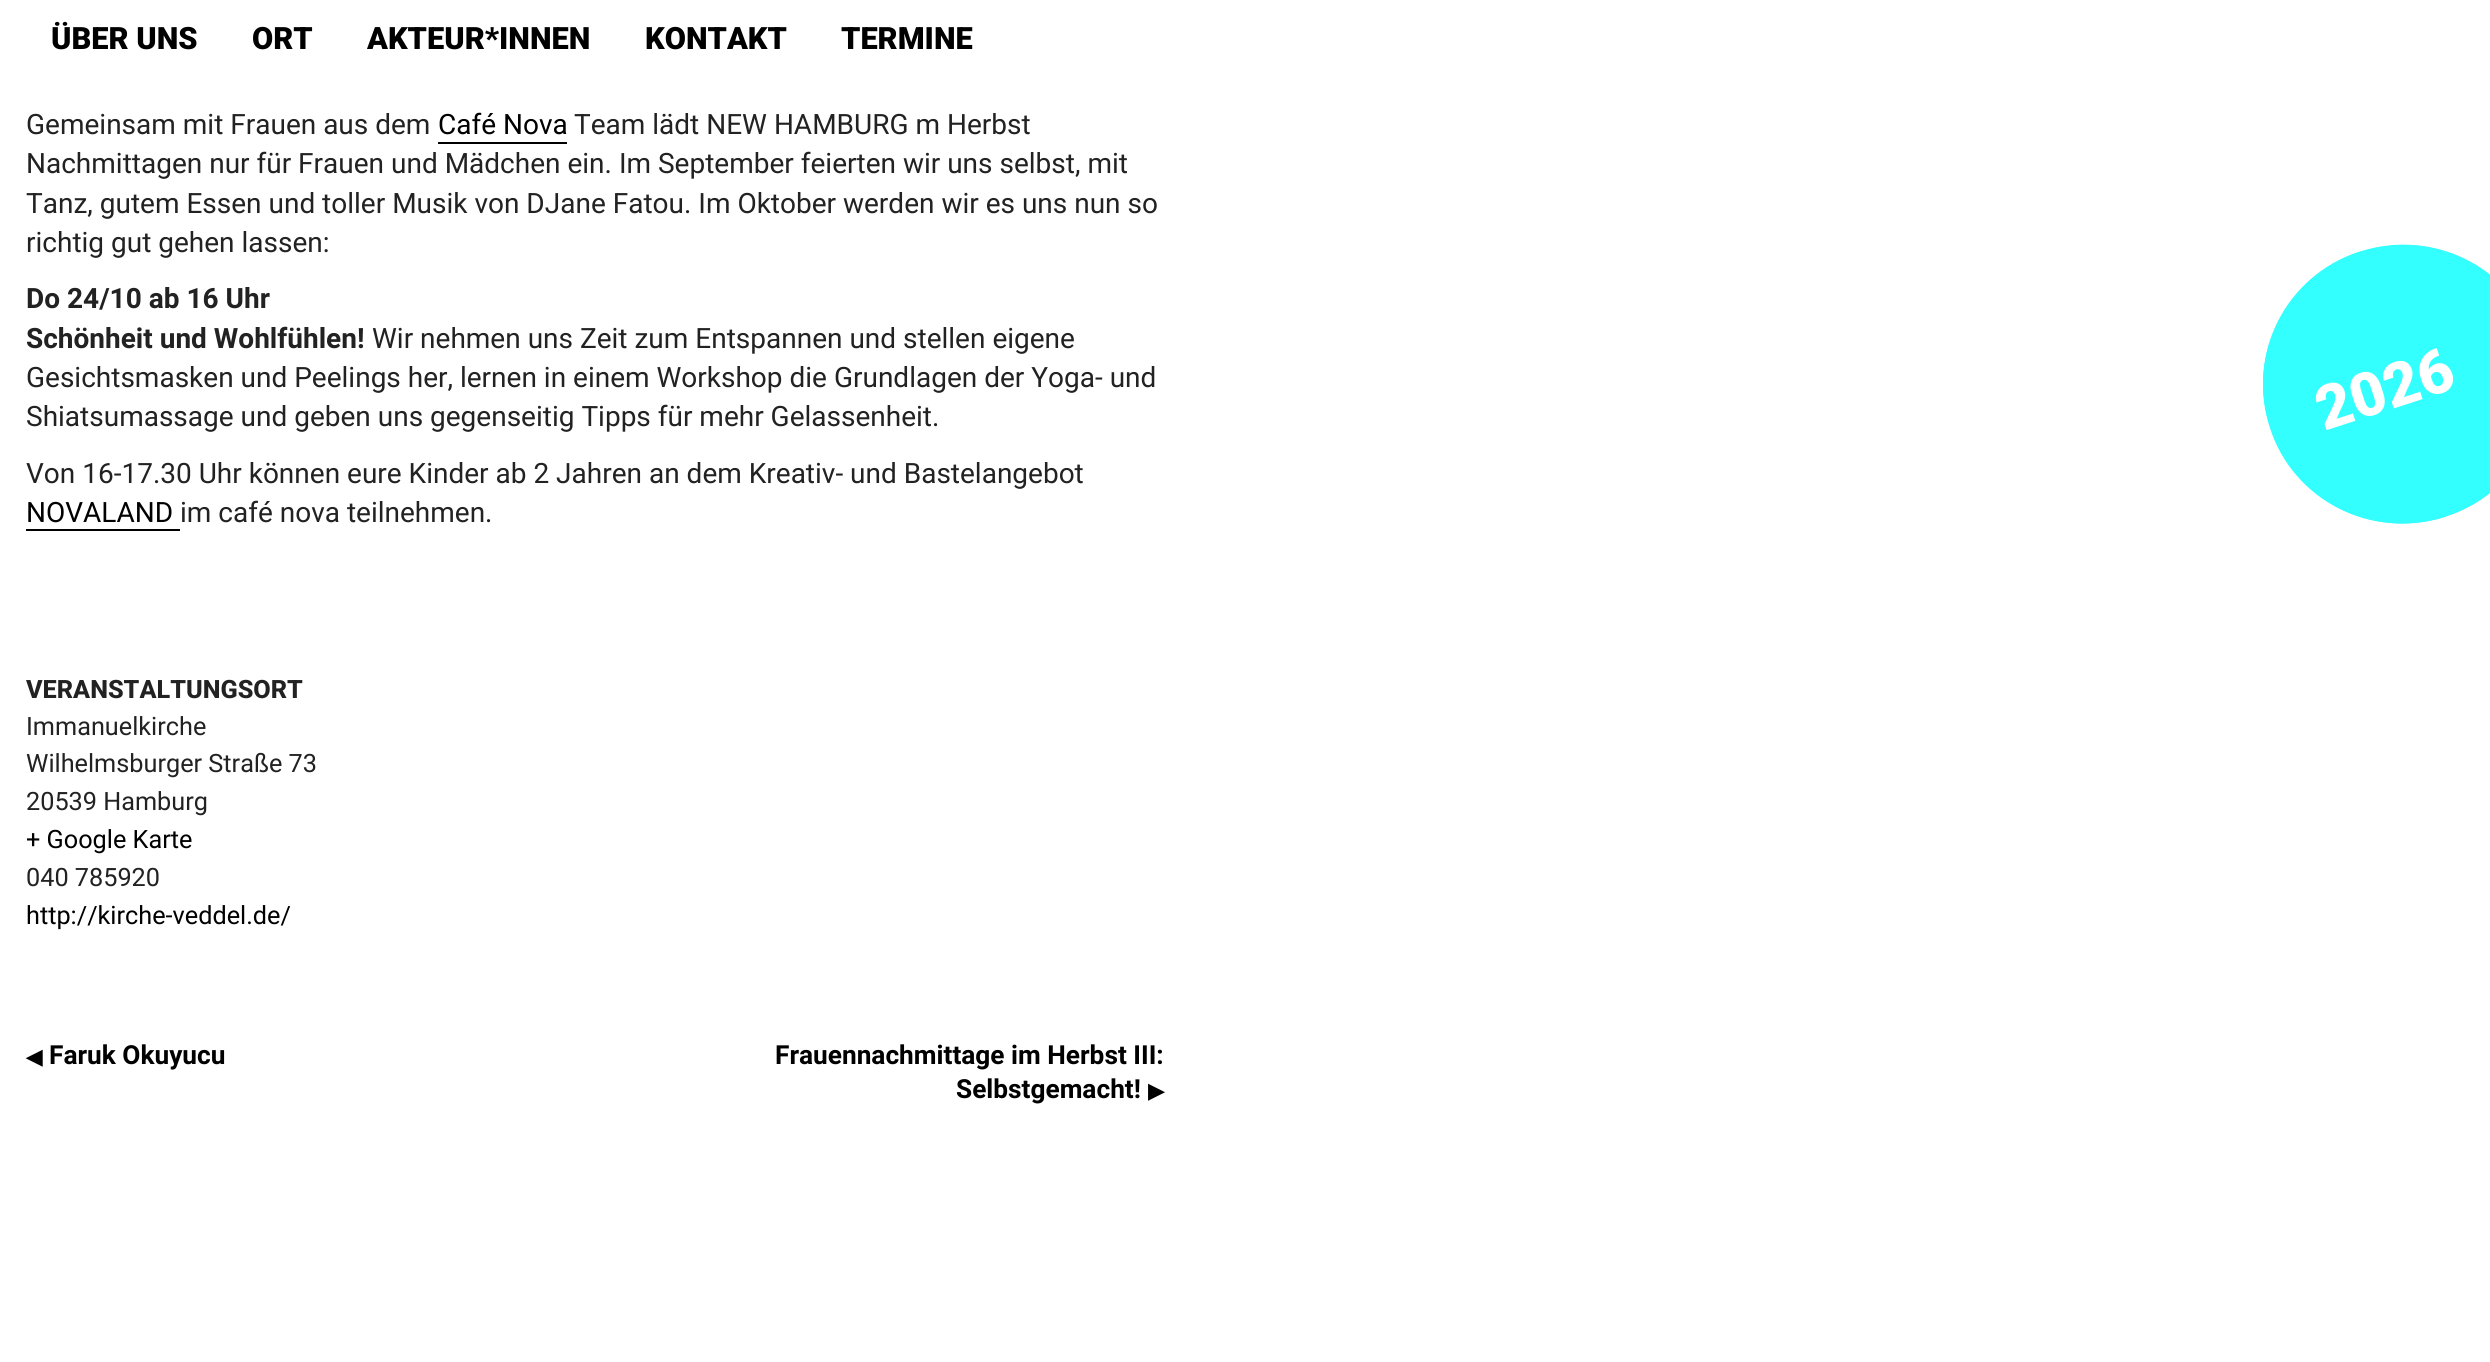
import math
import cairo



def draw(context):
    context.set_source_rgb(1, 1, 1)
    context.paint()
    context.set_source_rgb(0, 0, 0)
    context.rectangle(438, 142, 129, 2)
    context.fill()
    context.rectangle(26, 529, 154, 2)
    context.fill()
    context.set_source_rgb(51 / 255, 1, 1)
    context.new_path()
    context.move_to(2359, 252)
    context.line_to(2361, 252)
    context.curve_to(2434, 228, 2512, 268, 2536, 341)
    context.curve_to(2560, 414, 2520, 492, 2447, 516)
    context.line_to(2445, 517)
    context.curve_to(2372, 540, 2293, 500, 2270, 427)
    context.curve_to(2246, 354, 2286, 276, 2359, 252)
    context.close_path()
    context.fill()
    context.new_path()
    context.move_to(2359.5, 253.5)
    context.line_to(2361, 253)
    context.curve_to(2433.5, 230, 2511, 269, 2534, 341.5)
    context.curve_to(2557.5, 413.5, 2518, 491, 2446, 514.5)
    context.line_to(2444.5, 515)
    context.curve_to(2372, 538.5, 2294.5, 499, 2271.5, 427)
    context.curve_to(2248, 354.5, 2287.5, 277, 2359.5, 253.5)
    context.close_path()
    context.set_line_width(3.5)
    context.stroke()
    context.select_font_face("Roboto Black")
    context.set_font_size(30.75)
    context.set_source_rgb(0, 0, 0)
    context.move_to(51, 49)
    context.show_text("ÜBER UNS")
    context.move_to(252, 49)
    context.show_text("ORT")
    context.move_to(367, 49)
    context.show_text("AKTEUR*INNEN")
    context.move_to(645, 49)
    context.show_text("KONTAKT")
    context.move_to(841, 49)
    context.show_text("TERMINE")
    context.select_font_face("Roboto")
    context.set_font_size(28)
    context.set_source_rgb(34 / 255, 34 / 255, 34 / 255)
    context.move_to(26, 134)
    context.show_text("Gemeinsam mit Frauen aus dem")
    context.set_source_rgb(0, 0, 0)
    context.move_to(438, 134)
    context.show_text("Café Nova")
    context.set_source_rgb(34 / 255, 34 / 255, 34 / 255)
    context.move_to(574, 134)
    context.show_text("Team lädt NEW HAMBURG m Herbst")
    context.move_to(26, 173)
    context.show_text("Nachmittagen nur für Frauen und Mädchen ein. Im September feierten wir uns selbst, mit")
    context.move_to(26, 213)
    context.show_text("Tanz, gutem Essen und toller Musik von DJane Fatou. Im Oktober werden wir es uns nun so")
    context.move_to(26, 252)
    context.show_text("richtig gut gehen lassen:")
    context.select_font_face("Roboto", cairo.FontSlant.NORMAL, cairo.FontWeight.BOLD)
    context.move_to(26, 308)
    context.show_text("Do 24/10 ab 16 Uhr")
    context.move_to(26, 348)
    context.show_text("Schönheit und Wohlfühlen!")
    context.select_font_face("Roboto")
    context.move_to(372, 348)
    context.show_text("Wir nehmen uns Zeit zum Entspannen und stellen eigene")
    context.move_to(26, 387)
    context.show_text("Gesichtsmasken und Peelings her, lernen in einem Workshop die Grundlagen der Yoga- und")
    context.move_to(26, 426)
    context.show_text("Shiatsumassage und geben uns gegenseitig Tipps für mehr Gelassenheit.")
    context.move_to(26, 483)
    context.show_text("Von 16-17.30 Uhr können eure Kinder ab 2 Jahren an dem Kreativ- und Bastelangebot")
    context.set_source_rgb(0, 0, 0)
    context.move_to(26, 522)
    context.show_text("NOVALAND")
    context.set_source_rgb(34 / 255, 34 / 255, 34 / 255)
    context.move_to(180, 522)
    context.show_text("im café nova teilnehmen.")
    context.select_font_face("Roboto ExtraBold")
    context.set_font_size(25.25)
    context.move_to(26, 698)
    context.show_text("VERANSTALTUNGSORT")
    context.select_font_face("Roboto")
    context.move_to(26, 735)
    context.show_text("Immanuelkirche")
    context.move_to(26, 772)
    context.show_text("Wilhelmsburger Straße 73")
    context.move_to(26, 810)
    context.show_text("20539 Hamburg")
    context.set_source_rgb(0, 0, 0)
    context.move_to(26, 848)
    context.show_text("+ Google Karte")
    context.set_source_rgb(34 / 255, 34 / 255, 34 / 255)
    context.move_to(26, 886)
    context.show_text("040 785920")
    context.set_source_rgb(0, 0, 0)
    context.move_to(26, 924)
    context.show_text("http://kirche-veddel.de/")
    context.select_font_face("DejaVu Sans", cairo.FontSlant.NORMAL, cairo.FontWeight.BOLD)
    context.set_font_size(21)
    context.move_to(26, 1064)
    context.show_text("◀")
    context.select_font_face("Roboto", cairo.FontSlant.NORMAL, cairo.FontWeight.BOLD)
    context.set_font_size(26.25)
    context.move_to(49, 1064)
    context.show_text("Faruk Okuyucu")
    context.move_to(775, 1064)
    context.show_text("Frauennachmittage im Herbst III:")
    context.move_to(956, 1098)
    context.show_text("Selbstgemacht!")
    context.select_font_face("DejaVu Sans", cairo.FontSlant.NORMAL, cairo.FontWeight.BOLD)
    context.set_font_size(21)
    context.move_to(1148, 1098)
    context.show_text("▶")
    context.select_font_face("Roboto Black")
    context.set_font_size(61)
    context.set_source_rgb(1, 1, 1)
    context.save()
    context.translate(2324, 431)
    context.rotate(-18 * math.pi / 180)
    context.move_to(0, 0)
    context.show_text("2026")
    context.restore()


surface = cairo.ImageSurface(cairo.Format.RGB24, 2490, 1362)
context = cairo.Context(surface)
options = cairo.FontOptions()
options.set_hint_metrics(cairo.HintMetrics.OFF)
options.set_hint_style(cairo.HintStyle.NONE)
context.set_font_options(options)
context.set_miter_limit(4)
draw(context)
surface.write_to_png("out.png")
